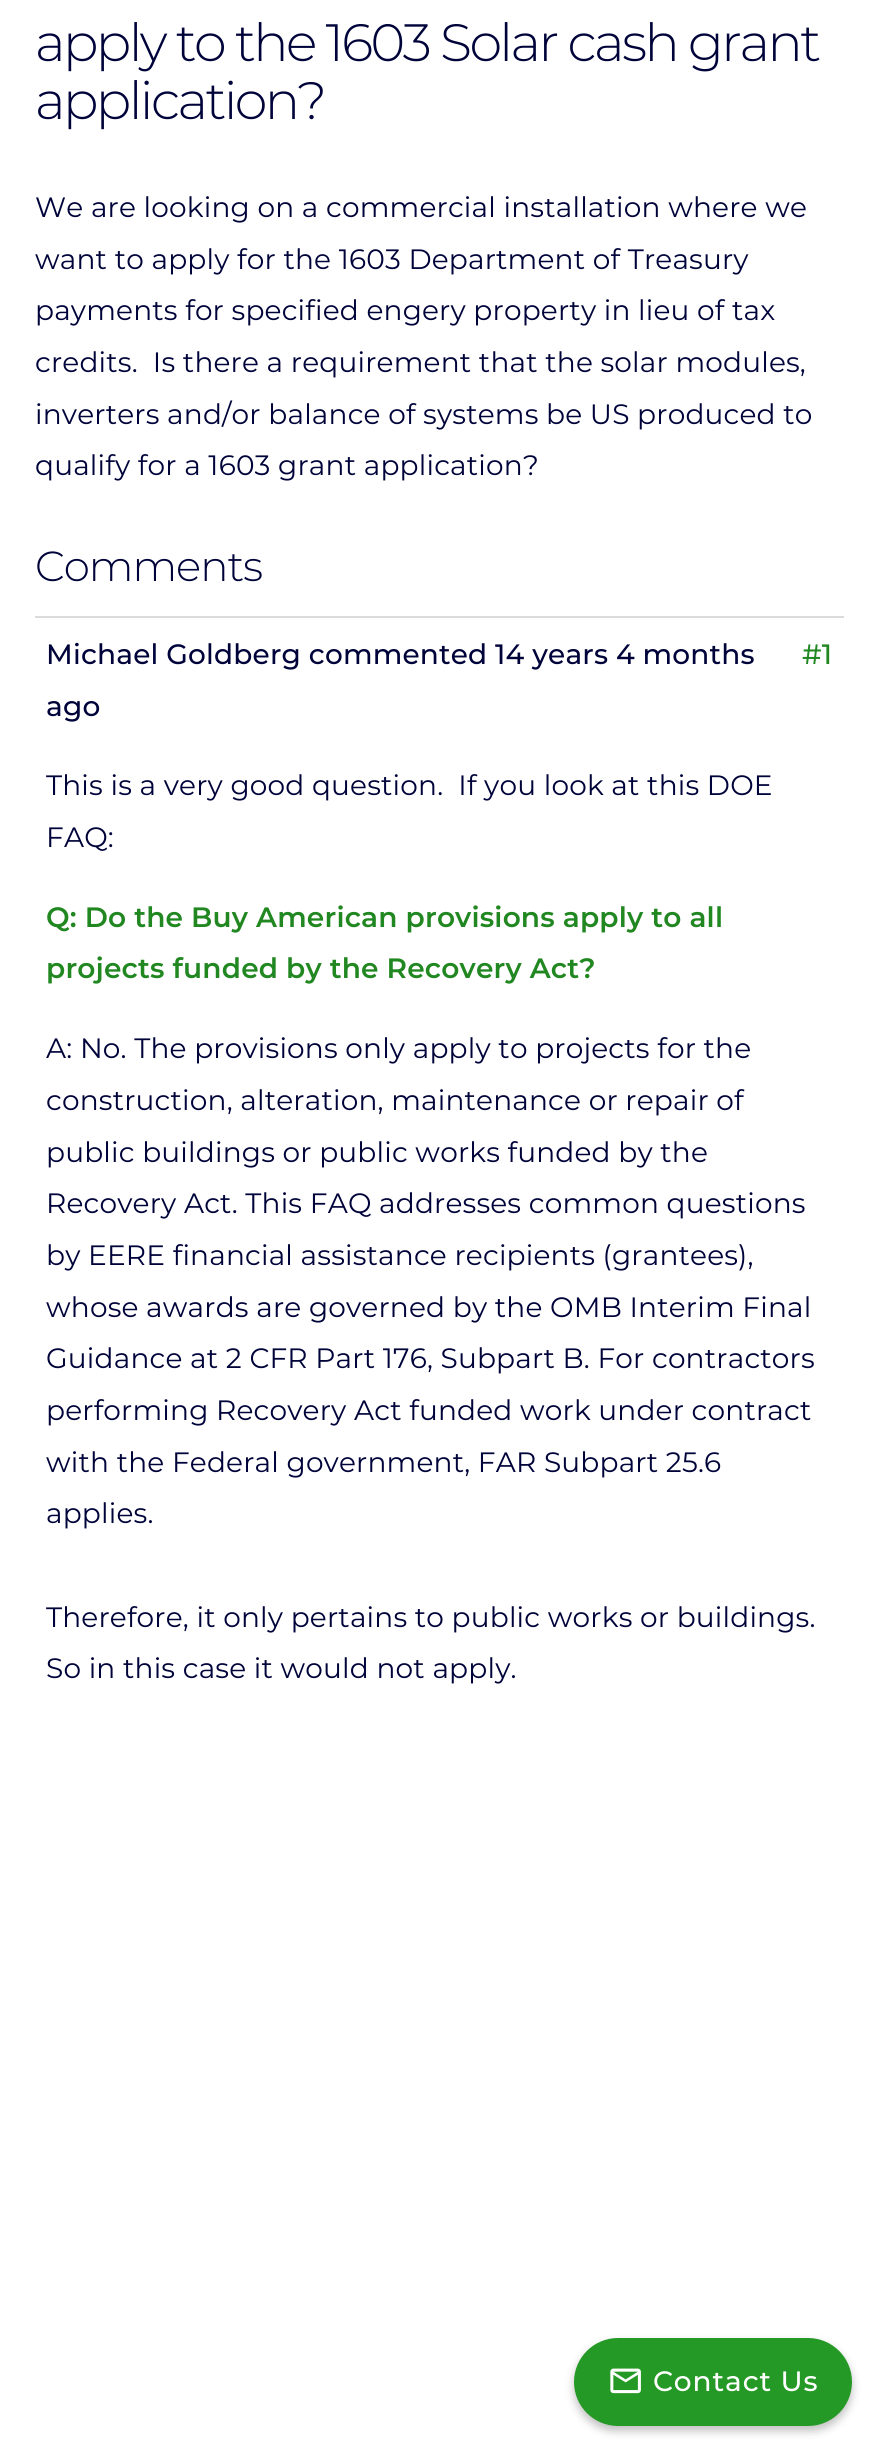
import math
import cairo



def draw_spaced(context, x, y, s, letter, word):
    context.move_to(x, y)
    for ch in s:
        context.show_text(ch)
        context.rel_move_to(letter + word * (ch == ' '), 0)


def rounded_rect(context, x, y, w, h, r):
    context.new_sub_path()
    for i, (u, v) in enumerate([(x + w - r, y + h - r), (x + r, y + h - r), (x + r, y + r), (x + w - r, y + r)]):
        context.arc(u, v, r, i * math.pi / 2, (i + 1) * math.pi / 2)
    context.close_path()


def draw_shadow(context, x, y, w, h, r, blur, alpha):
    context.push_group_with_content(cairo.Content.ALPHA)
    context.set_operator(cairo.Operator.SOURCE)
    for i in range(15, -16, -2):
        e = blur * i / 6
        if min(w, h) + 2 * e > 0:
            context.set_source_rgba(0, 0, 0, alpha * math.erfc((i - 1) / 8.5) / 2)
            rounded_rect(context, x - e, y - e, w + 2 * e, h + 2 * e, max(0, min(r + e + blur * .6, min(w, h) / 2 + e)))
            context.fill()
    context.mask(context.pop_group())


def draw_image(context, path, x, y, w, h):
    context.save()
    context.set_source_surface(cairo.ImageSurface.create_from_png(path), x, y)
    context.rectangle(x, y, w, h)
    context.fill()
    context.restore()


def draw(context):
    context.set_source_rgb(1, 1, 1)
    context.paint()
    context.set_source_rgb(218 / 255, 219 / 255, 220 / 255)
    context.rectangle(35, 616, 809, 2)
    context.fill()
    context.set_source_rgb(0, 0, 0)
    draw_shadow(context, 574, 2343, 278, 88, 44, 4.5, 0.25)
    context.set_source_rgb(37 / 255, 153 / 255, 37 / 255)
    rounded_rect(context, 574, 2338, 278, 88, 44)
    context.fill()
    draw_image(context, "images/1.png", 610, 2368, 31, 26)
    context.select_font_face("Montserrat Light")
    context.set_font_size(52.5)
    context.set_source_rgb(0, 3 / 255, 57 / 255)
    draw_spaced(context, 35, 61, "apply to the 1603 Solar cash grant", -2.6, 0)
    draw_spaced(context, 35, 119, "application?", -2.6, 0)
    context.select_font_face("Montserrat")
    context.set_font_size(28)
    draw_spaced(context, 35, 217, "We are looking on a commercial installation where we", 0.18, 0)
    draw_spaced(context, 35, 269, "want to apply for the 1603 Department of Treasury", 0.18, 0)
    draw_spaced(context, 35, 320, "payments for specified engery property in lieu of tax", 0.18, 0)
    draw_spaced(context, 35, 372, "credits.  Is there a requirement that the solar modules,", 0.18, 0)
    draw_spaced(context, 35, 424, "inverters and/or balance of systems be US produced to", 0.18, 0)
    draw_spaced(context, 35, 475, "qualify for a 1603 grant application?", 0.18, 0)
    context.select_font_face("Montserrat Light")
    context.set_font_size(42)
    draw_spaced(context, 35, 581, "Comments", -1, 0)
    context.select_font_face("Montserrat Medium")
    context.set_font_size(28)
    draw_spaced(context, 46, 664, "Michael Goldberg commented 14 years 4 months", 0.18, 0)
    context.set_source_rgb(33 / 255, 135 / 255, 33 / 255)
    draw_spaced(context, 802, 664, "#1", 0.18, 0)
    context.set_source_rgb(0, 3 / 255, 57 / 255)
    draw_spaced(context, 46, 716, "ago", 0.18, 0)
    context.select_font_face("Montserrat")
    draw_spaced(context, 46, 795, "This is a very good question.  If you look at this DOE", 0.18, 0)
    draw_spaced(context, 46, 847, "FAQ:", 0.18, 0)
    context.select_font_face("Montserrat SemiBold")
    context.set_source_rgb(33 / 255, 135 / 255, 33 / 255)
    draw_spaced(context, 46, 927, "Q: Do the Buy American provisions apply to all", 0.18, 0)
    draw_spaced(context, 46, 978, "projects funded by the Recovery Act?", 0.18, 0)
    context.select_font_face("Montserrat")
    context.set_source_rgb(0, 3 / 255, 57 / 255)
    draw_spaced(context, 46, 1058, "A: No. The provisions only apply to projects for the", 0.18, 0)
    draw_spaced(context, 46, 1110, "construction, alteration, maintenance or repair of", 0.18, 0)
    draw_spaced(context, 46, 1162, "public buildings or public works funded by the", 0.18, 0)
    draw_spaced(context, 46, 1213, "Recovery Act. This FAQ addresses common questions", 0.18, 0)
    draw_spaced(context, 46, 1265, "by EERE financial assistance recipients (grantees),", 0.18, 0)
    draw_spaced(context, 46, 1317, "whose awards are governed by the OMB Interim Final", 0.18, 0)
    draw_spaced(context, 46, 1368, "Guidance at 2 CFR Part 176, Subpart B. For contractors", 0.18, 0)
    draw_spaced(context, 46, 1420, "performing Recovery Act funded work under contract", 0.18, 0)
    draw_spaced(context, 46, 1472, "with the Federal government, FAR Subpart 25.6", 0.18, 0)
    draw_spaced(context, 46, 1523, "applies.", 0.18, 0)
    draw_spaced(context, 46, 1627, "Therefore, it only pertains to public works or buildings.", 0.18, 0)
    draw_spaced(context, 46, 1678, "So in this case it would not apply.", 0.18, 0)
    context.select_font_face("Montserrat Medium")
    context.set_source_rgb(1, 1, 1)
    draw_spaced(context, 653, 2391, "Contact Us", 0.9, 0)


surface = cairo.ImageSurface(cairo.Format.RGB24, 877, 2451)
context = cairo.Context(surface)
options = cairo.FontOptions()
options.set_hint_metrics(cairo.HintMetrics.OFF)
options.set_hint_style(cairo.HintStyle.NONE)
context.set_font_options(options)
context.set_miter_limit(4)
draw(context)
surface.write_to_png("out.png")
